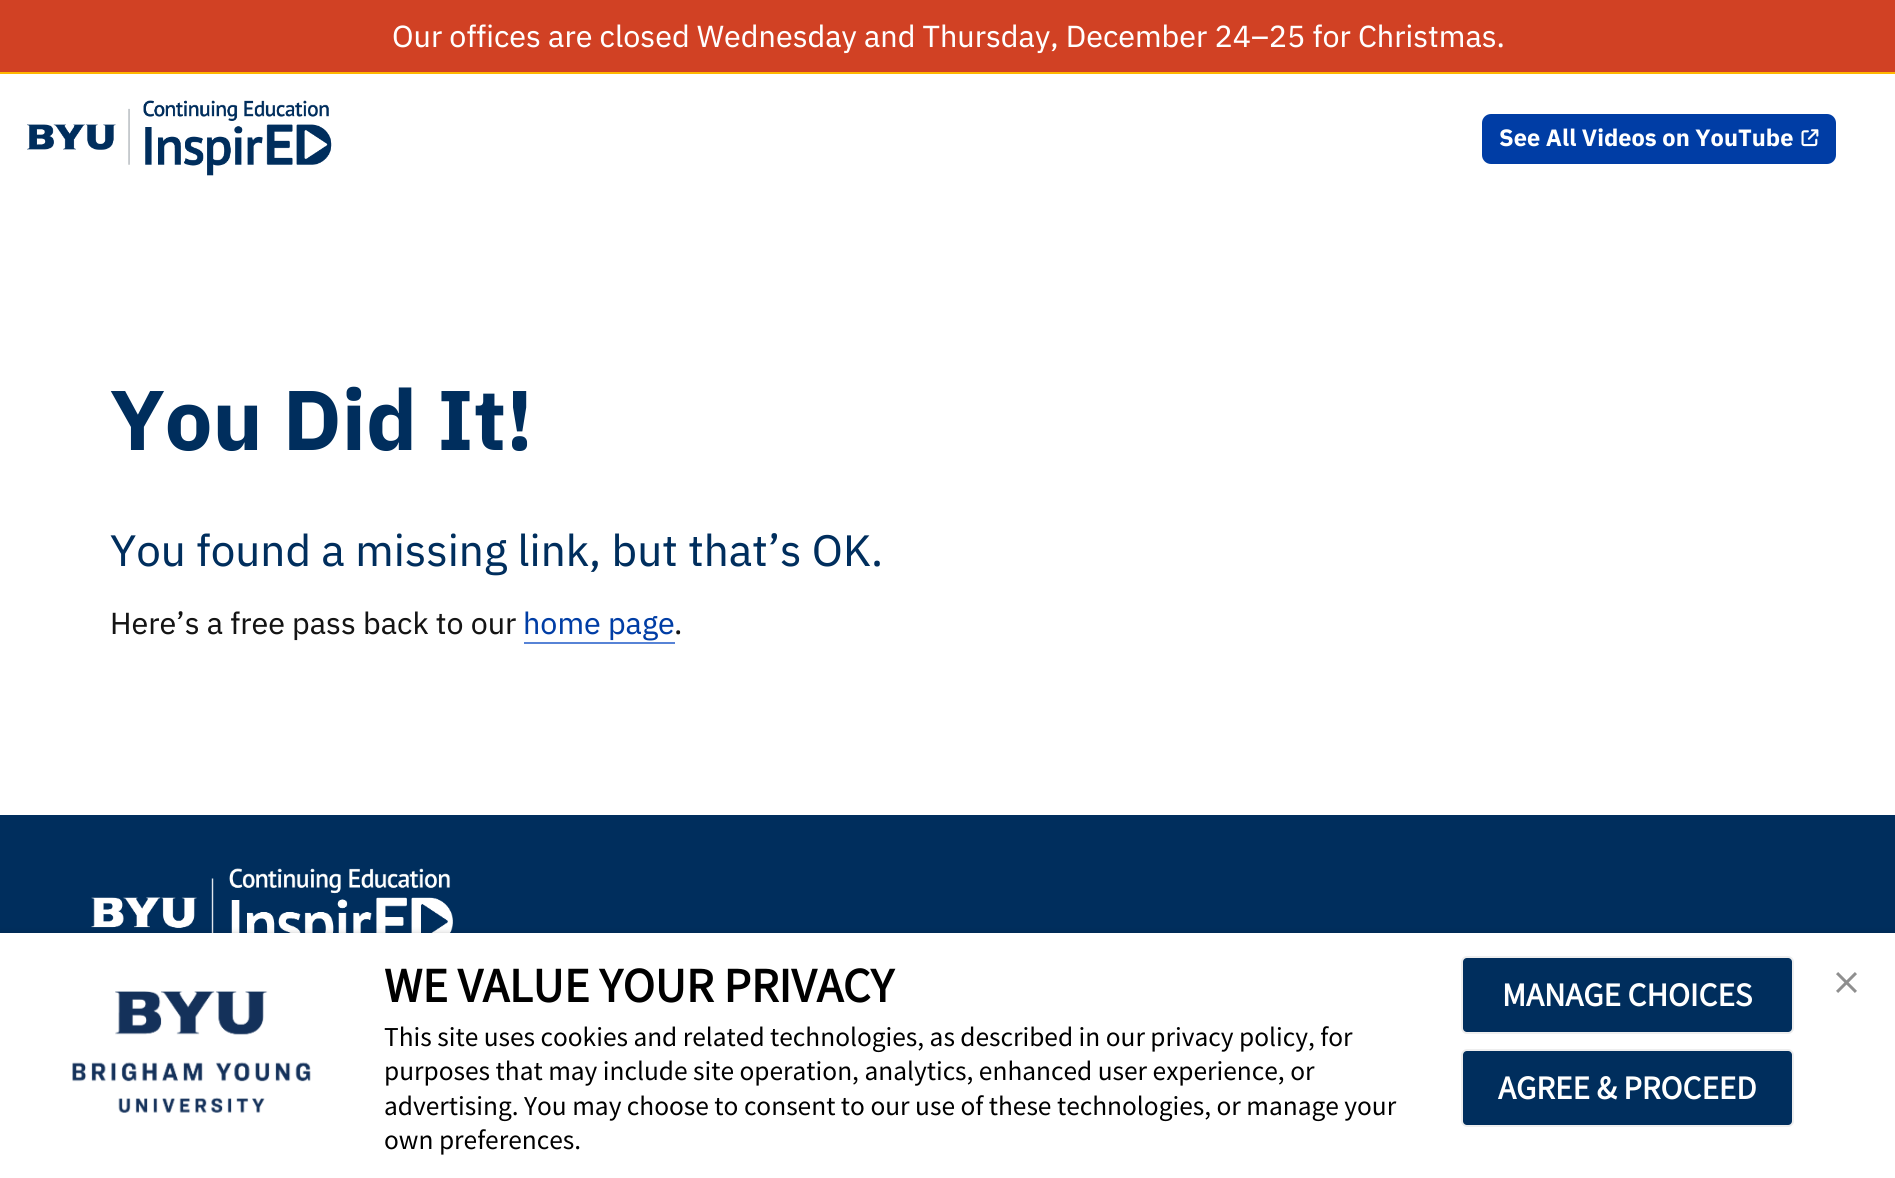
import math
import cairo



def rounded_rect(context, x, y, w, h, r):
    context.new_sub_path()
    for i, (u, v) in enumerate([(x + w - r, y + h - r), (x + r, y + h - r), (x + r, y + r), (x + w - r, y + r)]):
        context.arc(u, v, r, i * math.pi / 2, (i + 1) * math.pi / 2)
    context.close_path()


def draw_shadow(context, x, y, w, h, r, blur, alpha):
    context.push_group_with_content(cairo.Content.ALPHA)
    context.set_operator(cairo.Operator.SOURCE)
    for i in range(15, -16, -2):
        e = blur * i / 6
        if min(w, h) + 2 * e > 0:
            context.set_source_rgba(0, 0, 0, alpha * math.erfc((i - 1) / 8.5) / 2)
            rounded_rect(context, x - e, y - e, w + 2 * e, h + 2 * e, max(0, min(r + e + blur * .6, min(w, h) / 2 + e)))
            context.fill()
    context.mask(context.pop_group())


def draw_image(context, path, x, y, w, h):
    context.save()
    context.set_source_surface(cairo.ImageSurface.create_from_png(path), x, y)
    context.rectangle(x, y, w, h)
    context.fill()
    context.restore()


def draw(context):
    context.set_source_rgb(1, 1, 1)
    context.paint()
    context.set_source_rgb(209 / 255, 65 / 255, 36 / 255)
    context.rectangle(0, 0, 1895, 72)
    context.fill()
    context.set_source_rgb(1, 183 / 255, 0)
    context.rectangle(0, 72, 1895, 2)
    context.fill()
    draw_image(context, "images/1.png", 27, 100, 305, 76)
    context.set_source_rgb(0, 61 / 255, 165 / 255)
    rounded_rect(context, 1482, 114, 354, 50, 9)
    context.fill()
    draw_image(context, "images/2.png", 1801, 129, 18, 18)
    context.set_source_rgb(87 / 255, 131 / 255, 214 / 255)
    context.rectangle(524, 642, 151, 2)
    context.fill()
    context.set_source_rgb(0, 46 / 255, 93 / 255)
    context.rectangle(0, 815, 1895, 118)
    context.fill()
    draw_image(context, "images/3.png", 91, 868, 362, 65)
    context.set_source_rgb(0, 0, 0)
    draw_shadow(context, 0, 933, 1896, 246, 0, 3, 0.2)
    context.set_source_rgb(1, 1, 1)
    context.rectangle(0, 933, 1895, 245)
    context.fill()
    draw_image(context, "images/4.png", 1836, 972, 21, 21)
    draw_image(context, "images/5.png", 72, 991, 239, 122)
    context.set_source_rgb(0, 46 / 255, 93 / 255)
    rounded_rect(context, 1462, 957, 331, 76, 5)
    context.fill_preserve()
    context.set_source_rgb(238 / 255, 238 / 255, 238 / 255)
    context.stroke()
    context.set_source_rgb(0, 46 / 255, 93 / 255)
    rounded_rect(context, 1462, 1050, 331, 76, 5)
    context.fill_preserve()
    context.set_source_rgb(238 / 255, 238 / 255, 238 / 255)
    context.stroke()
    context.select_font_face("IBM Plex Sans")
    context.set_font_size(30.4)
    context.set_source_rgb(1, 1, 1)
    context.move_to(392, 47)
    context.show_text("Our offices are closed Wednesday and Thursday, December 24–25 for Christmas.")
    context.select_font_face("IBM Plex Sans", cairo.FontSlant.NORMAL, cairo.FontWeight.BOLD)
    context.set_font_size(23.6)
    context.move_to(1499, 146)
    context.show_text("See All Videos on YouTube")
    context.set_font_size(84.5)
    context.set_source_rgb(0, 46 / 255, 93 / 255)
    context.move_to(110, 450)
    context.show_text("You Did It!")
    context.select_font_face("IBM Plex Sans")
    context.set_font_size(43.9)
    context.move_to(110, 566)
    context.show_text("You found a missing link, but that’s OK.")
    context.set_font_size(30.4)
    context.set_source_rgb(20 / 255, 20 / 255, 20 / 255)
    context.move_to(110, 634)
    context.show_text("Here’s a free pass back to our")
    context.set_source_rgb(0, 61 / 255, 165 / 255)
    context.move_to(523, 634)
    context.show_text("home page")
    context.set_source_rgb(20 / 255, 20 / 255, 20 / 255)
    context.move_to(674, 634)
    context.show_text(".")
    context.select_font_face("Source Sans Pro", cairo.FontSlant.NORMAL, cairo.FontWeight.BOLD)
    context.set_font_size(48.6)
    context.set_source_rgb(0, 0, 0)
    context.move_to(384, 1002)
    context.show_text("WE VALUE YOUR PRIVACY")
    context.select_font_face("Source Sans Pro")
    context.set_font_size(27.35)
    context.move_to(384, 1046)
    context.show_text("This site uses cookies and related technologies, as described in our privacy policy, for")
    context.move_to(384, 1080)
    context.show_text("purposes that may include site operation, analytics, enhanced user experience, or")
    context.move_to(384, 1115)
    context.show_text("advertising. You may choose to consent to our use of these technologies, or manage your")
    context.move_to(384, 1149)
    context.show_text("own preferences.")
    context.select_font_face("Source Sans Pro", cairo.FontSlant.NORMAL, cairo.FontWeight.BOLD)
    context.set_font_size(33)
    context.set_source_rgb(1, 1, 1)
    context.move_to(1502, 1006)
    context.show_text("MANAGE CHOICES")
    context.move_to(1498, 1099)
    context.show_text("AGREE & PROCEED")


surface = cairo.ImageSurface(cairo.Format.RGB24, 1895, 1178)
context = cairo.Context(surface)
options = cairo.FontOptions()
options.set_hint_metrics(cairo.HintMetrics.OFF)
options.set_hint_style(cairo.HintStyle.NONE)
context.set_font_options(options)
context.set_miter_limit(4)
draw(context)
surface.write_to_png("out.png")
